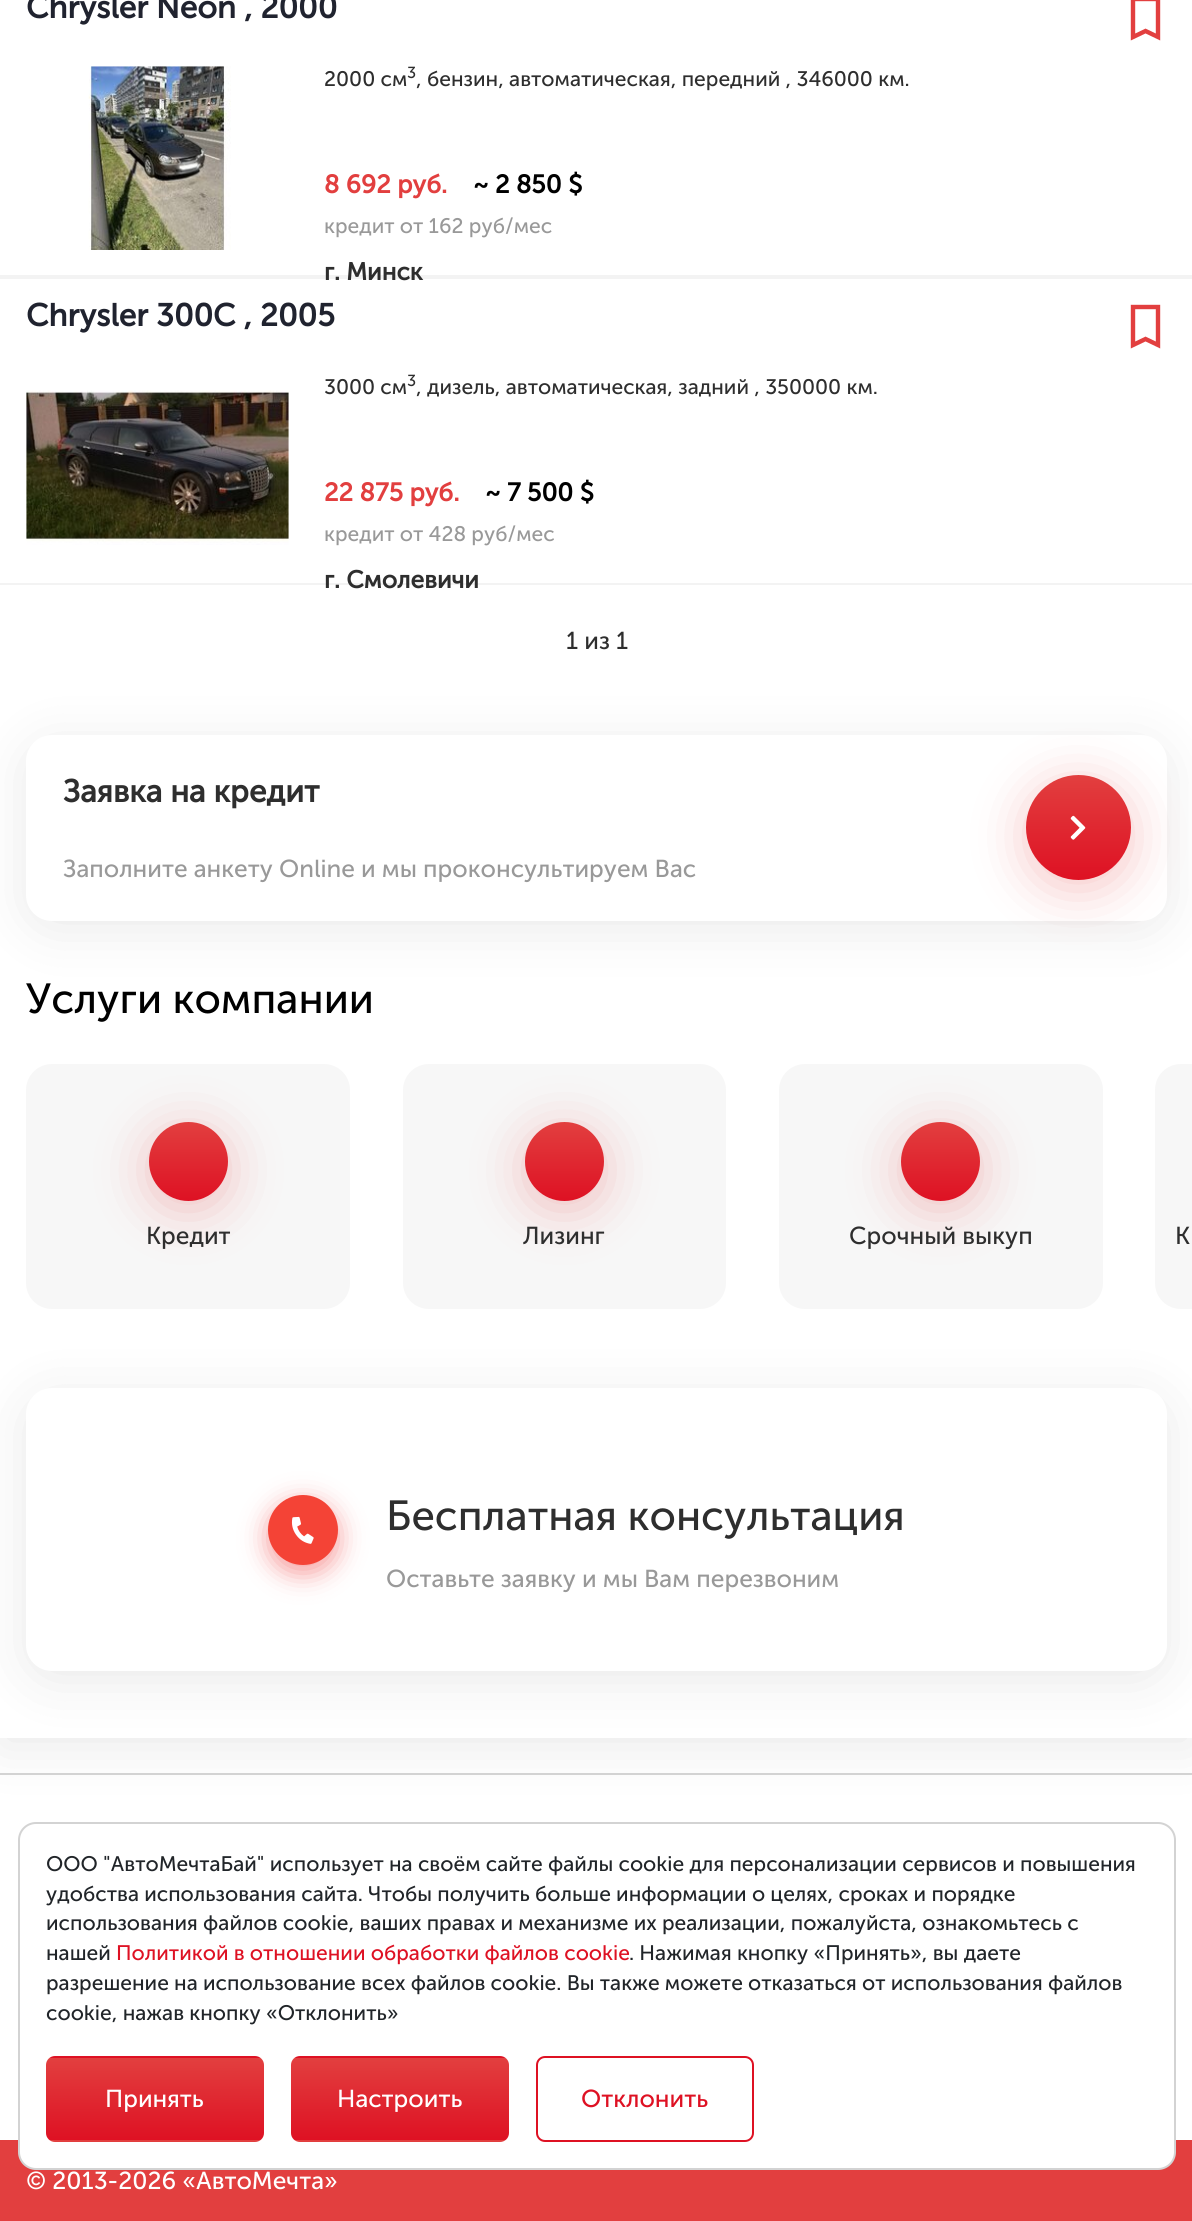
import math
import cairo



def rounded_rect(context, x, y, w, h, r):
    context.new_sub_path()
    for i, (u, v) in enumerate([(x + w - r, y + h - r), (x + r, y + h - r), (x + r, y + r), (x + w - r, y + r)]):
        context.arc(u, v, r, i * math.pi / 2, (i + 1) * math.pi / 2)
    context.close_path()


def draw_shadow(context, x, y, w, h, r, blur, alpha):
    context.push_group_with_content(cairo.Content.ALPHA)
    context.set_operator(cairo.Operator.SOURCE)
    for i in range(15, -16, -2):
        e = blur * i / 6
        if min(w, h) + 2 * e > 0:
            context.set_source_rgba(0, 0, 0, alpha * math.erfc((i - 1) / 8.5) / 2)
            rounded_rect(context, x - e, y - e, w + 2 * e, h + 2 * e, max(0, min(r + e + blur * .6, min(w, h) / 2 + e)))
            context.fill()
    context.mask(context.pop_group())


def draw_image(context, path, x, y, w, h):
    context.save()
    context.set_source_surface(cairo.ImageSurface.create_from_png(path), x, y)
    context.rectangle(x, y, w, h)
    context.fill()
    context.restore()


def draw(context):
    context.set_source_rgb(1, 1, 1)
    context.paint()
    context.set_source_rgb(37 / 255, 37 / 255, 37 / 255)
    draw_shadow(context, 0, -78, 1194, 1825, 0, 26, 0.1)
    context.set_source_rgb(1, 1, 1)
    context.rectangle(0, 0, 1192, 1738)
    context.fill()
    context.set_source_rgb(243 / 255, 243 / 255, 243 / 255)
    context.rectangle(0, 275, 1192, 4)
    context.fill()
    context.new_path()
    context.move_to(1145.5, 31)
    context.line_to(1133, 37)
    context.line_to(1133, -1)
    context.line_to(1158, -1)
    context.line_to(1158, 37)
    context.close_path()
    context.set_source_rgb(226 / 255, 63 / 255, 63 / 255)
    context.set_line_width(4.4)
    context.stroke()
    draw_image(context, "images/1.png", 88, 66, 143, 184)
    context.set_source_rgb(243 / 255, 243 / 255, 243 / 255)
    context.rectangle(0, 583, 1192, 2)
    context.fill()
    context.new_path()
    context.move_to(1145.5, 339)
    context.line_to(1133, 345)
    context.line_to(1133, 307)
    context.line_to(1158, 307)
    context.line_to(1158, 345)
    context.close_path()
    context.set_source_rgb(226 / 255, 63 / 255, 63 / 255)
    context.stroke()
    draw_image(context, "images/2.png", 26, 390, 263, 155)
    context.set_source_rgb(37 / 255, 37 / 255, 37 / 255)
    draw_shadow(context, 26, 744, 1141, 185, 26, 26, 0.1)
    context.set_source_rgb(1, 1, 1)
    rounded_rect(context, 26, 735, 1141, 186, 26)
    context.fill()
    context.set_source_rgb(226 / 255, 63 / 255, 63 / 255)
    draw_shadow(context, 1026, 784, 105, 105, 52.5, 26, 0.3)
    gradient = cairo.LinearGradient(1078, 775, 1078, 880)
    gradient.add_color_stop_rgba(0, 226 / 255, 63 / 255, 63 / 255, 1)
    gradient.add_color_stop_rgba(1, 222 / 255, 17 / 255, 35 / 255, 1)
    context.set_source(gradient)
    context.arc(1078.5, 827.5, 52.5, 0, 2 * math.pi)
    context.fill()
    draw_image(context, "images/3.png", 1070, 815, 16, 25)
    context.set_source_rgb(247 / 255, 247 / 255, 247 / 255)
    rounded_rect(context, 26, 1064, 324, 245, 26)
    context.fill()
    context.set_source_rgb(226 / 255, 63 / 255, 63 / 255)
    draw_shadow(context, 149, 1131, 79, 78, 39, 26, 0.3)
    gradient = cairo.LinearGradient(188, 1122, 188, 1201)
    gradient.add_color_stop_rgba(0, 226 / 255, 63 / 255, 63 / 255, 1)
    gradient.add_color_stop_rgba(1, 222 / 255, 17 / 255, 35 / 255, 1)
    context.set_source(gradient)
    context.arc(188.5, 1161.5, 39.5, 0, 2 * math.pi)
    context.fill()
    context.set_source_rgb(247 / 255, 247 / 255, 247 / 255)
    rounded_rect(context, 403, 1064, 323, 245, 26)
    context.fill()
    context.set_source_rgb(226 / 255, 63 / 255, 63 / 255)
    draw_shadow(context, 525, 1131, 79, 78, 39, 26, 0.3)
    gradient = cairo.LinearGradient(564, 1122, 564, 1201)
    gradient.add_color_stop_rgba(0, 226 / 255, 63 / 255, 63 / 255, 1)
    gradient.add_color_stop_rgba(1, 222 / 255, 17 / 255, 35 / 255, 1)
    context.set_source(gradient)
    context.arc(564.5, 1161.5, 39.5, 0, 2 * math.pi)
    context.fill()
    context.set_source_rgb(247 / 255, 247 / 255, 247 / 255)
    rounded_rect(context, 779, 1064, 324, 245, 26)
    context.fill()
    context.set_source_rgb(226 / 255, 63 / 255, 63 / 255)
    draw_shadow(context, 901, 1131, 79, 78, 39, 26, 0.3)
    gradient = cairo.LinearGradient(941, 1122, 941, 1201)
    gradient.add_color_stop_rgba(0, 226 / 255, 63 / 255, 63 / 255, 1)
    gradient.add_color_stop_rgba(1, 222 / 255, 17 / 255, 35 / 255, 1)
    context.set_source(gradient)
    context.arc(940.5, 1161.5, 39.5, 0, 2 * math.pi)
    context.fill()
    context.set_source_rgb(247 / 255, 247 / 255, 247 / 255)
    context.new_path()
    context.move_to(1181, 1064)
    context.line_to(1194, 1064)
    context.line_to(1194, 1309)
    context.line_to(1181, 1309)
    context.curve_to(1166.5, 1309, 1155, 1297.5, 1155, 1283)
    context.line_to(1155, 1090)
    context.curve_to(1155, 1075.5, 1166.5, 1064, 1181, 1064)
    context.close_path()
    context.fill()
    context.set_source_rgb(29 / 255, 29 / 255, 29 / 255)
    draw_shadow(context, 26, 1397, 1141, 283, 26, 26, 0.1)
    context.set_source_rgb(1, 1, 1)
    rounded_rect(context, 26, 1388, 1141, 283, 26)
    context.fill()
    context.set_source_rgb(238 / 255, 53 / 255, 53 / 255)
    draw_shadow(context, 268, 1503, 70, 70, 35, 13, 0.5)
    context.set_source_rgb(244 / 255, 67 / 255, 54 / 255)
    context.arc(303, 1530, 35, 0, 2 * math.pi)
    context.fill()
    draw_image(context, "images/4.png", 291, 1516, 23, 28)
    context.set_source_rgb(211 / 255, 211 / 255, 211 / 255)
    context.rectangle(0, 1773, 1192, 2)
    context.fill()
    context.set_source_rgb(226 / 255, 63 / 255, 63 / 255)
    context.rectangle(0, 2140, 1192, 81)
    context.fill()
    context.set_source_rgb(1, 1, 1)
    rounded_rect(context, 19, 1823, 1156, 346, 17)
    context.fill_preserve()
    context.set_source_rgb(211 / 255, 211 / 255, 211 / 255)
    context.set_line_width(2)
    context.stroke()
    context.save()
    rounded_rect(context, 46, 2056, 218, 86, 9)
    context.clip()
    gradient = cairo.LinearGradient(155, 1976, 155, 2058)
    gradient.add_color_stop_rgba(0, 226 / 255, 63 / 255, 63 / 255, 1)
    gradient.add_color_stop_rgba(1, 222 / 255, 17 / 255, 35 / 255, 1)
    context.set_source(gradient)
    context.rectangle(46, 2056, 218, 2)
    context.fill()
    gradient = cairo.LinearGradient(155, 2058, 155, 2140)
    gradient.add_color_stop_rgba(0, 226 / 255, 63 / 255, 63 / 255, 1)
    gradient.add_color_stop_rgba(1, 222 / 255, 17 / 255, 35 / 255, 1)
    context.set_source(gradient)
    context.rectangle(46, 2058, 218, 82)
    context.fill()
    gradient = cairo.LinearGradient(155, 2140, 155, 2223)
    gradient.add_color_stop_rgba(0, 226 / 255, 63 / 255, 63 / 255, 1)
    gradient.add_color_stop_rgba(1, 222 / 255, 17 / 255, 35 / 255, 1)
    context.set_source(gradient)
    context.rectangle(46, 2140, 218, 2)
    context.fill()
    context.restore()
    context.save()
    rounded_rect(context, 291, 2056, 218, 86, 9)
    context.clip()
    gradient = cairo.LinearGradient(400, 1976, 400, 2058)
    gradient.add_color_stop_rgba(0, 226 / 255, 63 / 255, 63 / 255, 1)
    gradient.add_color_stop_rgba(1, 222 / 255, 17 / 255, 35 / 255, 1)
    context.set_source(gradient)
    context.rectangle(291, 2056, 218, 2)
    context.fill()
    gradient = cairo.LinearGradient(400, 2058, 400, 2140)
    gradient.add_color_stop_rgba(0, 226 / 255, 63 / 255, 63 / 255, 1)
    gradient.add_color_stop_rgba(1, 222 / 255, 17 / 255, 35 / 255, 1)
    context.set_source(gradient)
    context.rectangle(291, 2058, 218, 82)
    context.fill()
    gradient = cairo.LinearGradient(400, 2140, 400, 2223)
    gradient.add_color_stop_rgba(0, 226 / 255, 63 / 255, 63 / 255, 1)
    gradient.add_color_stop_rgba(1, 222 / 255, 17 / 255, 35 / 255, 1)
    context.set_source(gradient)
    context.rectangle(291, 2140, 218, 2)
    context.fill()
    context.restore()
    rounded_rect(context, 537, 2057, 216, 84, 8)
    context.set_source_rgb(222 / 255, 17 / 255, 35 / 255)
    context.stroke()
    context.select_font_face("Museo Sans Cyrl", cairo.FontSlant.NORMAL, cairo.FontWeight.BOLD)
    context.set_font_size(31.5)
    context.set_source_rgb(32 / 255, 35 / 255, 47 / 255)
    context.move_to(26, 18)
    context.show_text("Chrysler Neon , 2000")
    context.select_font_face("Museo Sans Cyrl")
    context.set_font_size(21)
    context.set_source_rgb(46 / 255, 46 / 255, 46 / 255)
    context.move_to(324, 86)
    context.show_text("2000 см")
    context.set_font_size(16)
    context.move_to(407, 78)
    context.show_text("3")
    context.set_font_size(21)
    context.move_to(416, 86)
    context.show_text(", бензин, автоматическая, передний , 346000 км.")
    context.select_font_face("Museo Sans Cyrl", cairo.FontSlant.NORMAL, cairo.FontWeight.BOLD)
    context.set_font_size(25.5)
    context.set_source_rgb(226 / 255, 63 / 255, 63 / 255)
    context.move_to(324, 193)
    context.show_text("8 692 руб.")
    context.set_source_rgb(0, 0, 0)
    context.move_to(473, 193)
    context.show_text("~ 2 850 $")
    context.select_font_face("Museo Sans Cyrl")
    context.set_font_size(21)
    context.set_source_rgb(153 / 255, 153 / 255, 153 / 255)
    context.move_to(324, 233)
    context.show_text("кредит от 162 руб/мес")
    context.select_font_face("Museo Sans Cyrl", cairo.FontSlant.NORMAL, cairo.FontWeight.BOLD)
    context.set_font_size(24.5)
    context.set_source_rgb(46 / 255, 46 / 255, 46 / 255)
    context.move_to(324, 280)
    context.show_text("г. Минск")
    context.set_font_size(31.5)
    context.set_source_rgb(32 / 255, 35 / 255, 47 / 255)
    context.move_to(26, 326)
    context.show_text("Chrysler 300C , 2005")
    context.select_font_face("Museo Sans Cyrl")
    context.set_font_size(21)
    context.set_source_rgb(46 / 255, 46 / 255, 46 / 255)
    context.move_to(324, 394)
    context.show_text("3000 см")
    context.set_font_size(16)
    context.move_to(407, 386)
    context.show_text("3")
    context.set_font_size(21)
    context.move_to(416, 394)
    context.show_text(", дизель, автоматическая, задний , 350000 км.")
    context.select_font_face("Museo Sans Cyrl", cairo.FontSlant.NORMAL, cairo.FontWeight.BOLD)
    context.set_font_size(25.5)
    context.set_source_rgb(226 / 255, 63 / 255, 63 / 255)
    context.move_to(324, 501)
    context.show_text("22 875 руб.")
    context.set_source_rgb(0, 0, 0)
    context.move_to(485, 501)
    context.show_text("~ 7 500 $")
    context.select_font_face("Museo Sans Cyrl")
    context.set_font_size(21)
    context.set_source_rgb(153 / 255, 153 / 255, 153 / 255)
    context.move_to(324, 541)
    context.show_text("кредит от 428 руб/мес")
    context.select_font_face("Museo Sans Cyrl", cairo.FontSlant.NORMAL, cairo.FontWeight.BOLD)
    context.set_font_size(24.5)
    context.set_source_rgb(46 / 255, 46 / 255, 46 / 255)
    context.move_to(324, 588)
    context.show_text("г. Смолевичи")
    context.select_font_face("Museo Sans Cyrl")
    context.move_to(566, 649)
    context.show_text("1 из 1")
    context.select_font_face("Museo Sans Cyrl", cairo.FontSlant.NORMAL, cairo.FontWeight.BOLD)
    context.set_font_size(31.5)
    context.move_to(63, 802)
    context.show_text("Заявка на кредит")
    context.select_font_face("Museo Sans Cyrl")
    context.set_font_size(24.5)
    context.set_source_rgb(153 / 255, 153 / 255, 153 / 255)
    context.move_to(63, 877)
    context.show_text("Заполните анкету Online и мы проконсультируем Вас")
    context.set_font_size(42)
    context.set_source_rgb(0, 0, 0)
    context.move_to(26, 1013)
    context.show_text("Услуги компании")
    context.set_font_size(24.5)
    context.set_source_rgb(46 / 255, 46 / 255, 46 / 255)
    context.move_to(146, 1244)
    context.show_text("Кредит")
    context.move_to(523, 1244)
    context.show_text("Лизинг")
    context.move_to(849, 1244)
    context.show_text("Срочный выкуп")
    context.move_to(1175, 1244)
    context.show_text("К")
    context.set_font_size(42)
    context.move_to(386, 1530)
    context.show_text("Бесплатная консультация")
    context.set_font_size(24.5)
    context.set_source_rgb(153 / 255, 153 / 255, 153 / 255)
    context.move_to(386, 1587)
    context.show_text("Оставьте заявку и мы Вам перезвоним")
    context.set_source_rgb(1, 1, 1)
    context.move_to(26, 2189)
    context.show_text("© 2013-2026 «АвтоМечта»")
    context.set_font_size(21)
    context.set_source_rgb(33 / 255, 37 / 255, 41 / 255)
    context.move_to(46, 1871)
    context.show_text("ООО \"АвтоМечтаБай\" использует на своём сайте файлы cookie для персонализации сервисов и повышения")
    context.move_to(46, 1901)
    context.show_text("удобства использования сайта. Чтобы получить больше информации о целях, сроках и порядке")
    context.move_to(46, 1930)
    context.show_text("использования файлов cookie, ваших правах и механизме их реализации, пожалуйста, ознакомьтесь с")
    context.move_to(46, 1960)
    context.show_text("нашей")
    context.set_source_rgb(222 / 255, 17 / 255, 35 / 255)
    context.move_to(116, 1960)
    context.show_text("Политикой в отношении обработки файлов cookie")
    context.set_source_rgb(33 / 255, 37 / 255, 41 / 255)
    context.move_to(629, 1960)
    context.show_text(". Нажимая кнопку «Принять», вы даете")
    context.move_to(46, 1990)
    context.show_text("разрешение на использование всех файлов cookie. Вы также можете отказаться от использования файлов")
    context.move_to(46, 2020)
    context.show_text("cookie, нажав кнопку «Отклонить»")
    context.set_font_size(24.5)
    context.set_source_rgb(1, 1, 1)
    context.move_to(105, 2107)
    context.show_text("Принять")
    context.move_to(337, 2107)
    context.show_text("Настроить")
    context.set_source_rgb(222 / 255, 17 / 255, 35 / 255)
    context.move_to(581, 2107)
    context.show_text("Отклонить")


surface = cairo.ImageSurface(cairo.Format.RGB24, 1192, 2221)
context = cairo.Context(surface)
options = cairo.FontOptions()
options.set_hint_metrics(cairo.HintMetrics.OFF)
options.set_hint_style(cairo.HintStyle.NONE)
context.set_font_options(options)
context.set_miter_limit(4)
draw(context)
surface.write_to_png("out.png")
